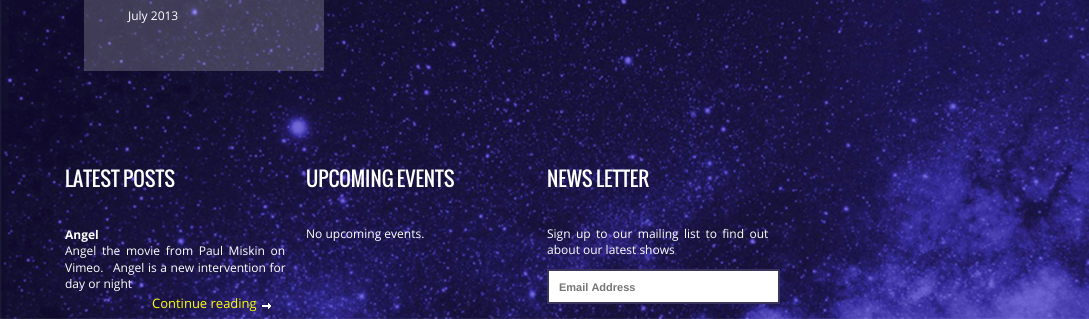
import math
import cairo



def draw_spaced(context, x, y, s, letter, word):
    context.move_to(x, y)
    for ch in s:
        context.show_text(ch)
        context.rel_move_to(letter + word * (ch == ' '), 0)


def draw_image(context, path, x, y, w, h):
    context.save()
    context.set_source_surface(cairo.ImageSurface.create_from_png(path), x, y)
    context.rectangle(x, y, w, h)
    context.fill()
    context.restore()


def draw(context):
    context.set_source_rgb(1, 1, 1)
    context.paint()
    draw_image(context, "images/1.png", 0, 0, 1089, 319)
    context.set_source_rgba(1, 1, 1, 0.2)
    context.rectangle(84, 0, 240, 71)
    context.fill()
    draw_image(context, "images/2.png", 262, 303, 9, 6)
    context.set_source_rgb(1, 1, 1)
    context.rectangle(548, 270, 231, 33)
    context.fill_preserve()
    context.set_source_rgb(58 / 255, 52 / 255, 95 / 255)
    context.stroke()
    context.select_font_face("Open Sans")
    context.set_font_size(12)
    context.set_source_rgb(1, 1, 1)
    context.move_to(128, 20)
    context.show_text("July 2013")
    context.select_font_face("Oswald")
    context.set_font_size(20)
    context.move_to(65, 187)
    context.show_text("LATEST POSTS")
    context.select_font_face("Open Sans", cairo.FontSlant.NORMAL, cairo.FontWeight.BOLD)
    context.set_font_size(12)
    context.move_to(65, 239)
    context.show_text("Angel")
    context.select_font_face("Open Sans")
    draw_spaced(context, 65, 255, "Angel the movie from Paul Miskin on", 0, 2.5)
    context.move_to(65, 272)
    context.show_text("Vimeo.")
    draw_spaced(context, 113, 272, "Angel is a new intervention for", 0, 0.5)
    context.move_to(65, 288)
    context.show_text("day or night")
    context.set_font_size(13)
    context.set_source_rgb(1, 1, 0)
    context.move_to(152, 308)
    context.show_text("Continue reading")
    context.select_font_face("Oswald")
    context.set_font_size(20)
    context.set_source_rgb(1, 1, 1)
    context.move_to(306, 187)
    context.show_text("UPCOMING EVENTS")
    context.select_font_face("Open Sans")
    context.set_font_size(12)
    context.move_to(306, 238)
    context.show_text("No upcoming events.")
    context.select_font_face("Oswald")
    context.set_font_size(20)
    context.move_to(547, 187)
    context.show_text("NEWS LETTER")
    context.select_font_face("Open Sans")
    context.set_font_size(12)
    draw_spaced(context, 547, 238, "Sign up to our mailing list to find out", 0, 2.25)
    context.move_to(547, 254)
    context.show_text("about our latest shows")
    context.select_font_face("Liberation Sans", cairo.FontSlant.NORMAL, cairo.FontWeight.BOLD)
    context.set_font_size(11)
    context.set_source_rgb(117 / 255, 117 / 255, 117 / 255)
    context.move_to(559, 291)
    context.show_text("Email Address")


surface = cairo.ImageSurface(cairo.Format.RGB24, 1089, 319)
context = cairo.Context(surface)
options = cairo.FontOptions()
options.set_hint_metrics(cairo.HintMetrics.OFF)
options.set_hint_style(cairo.HintStyle.NONE)
context.set_font_options(options)
context.set_miter_limit(4)
draw(context)
surface.write_to_png("out.png")
